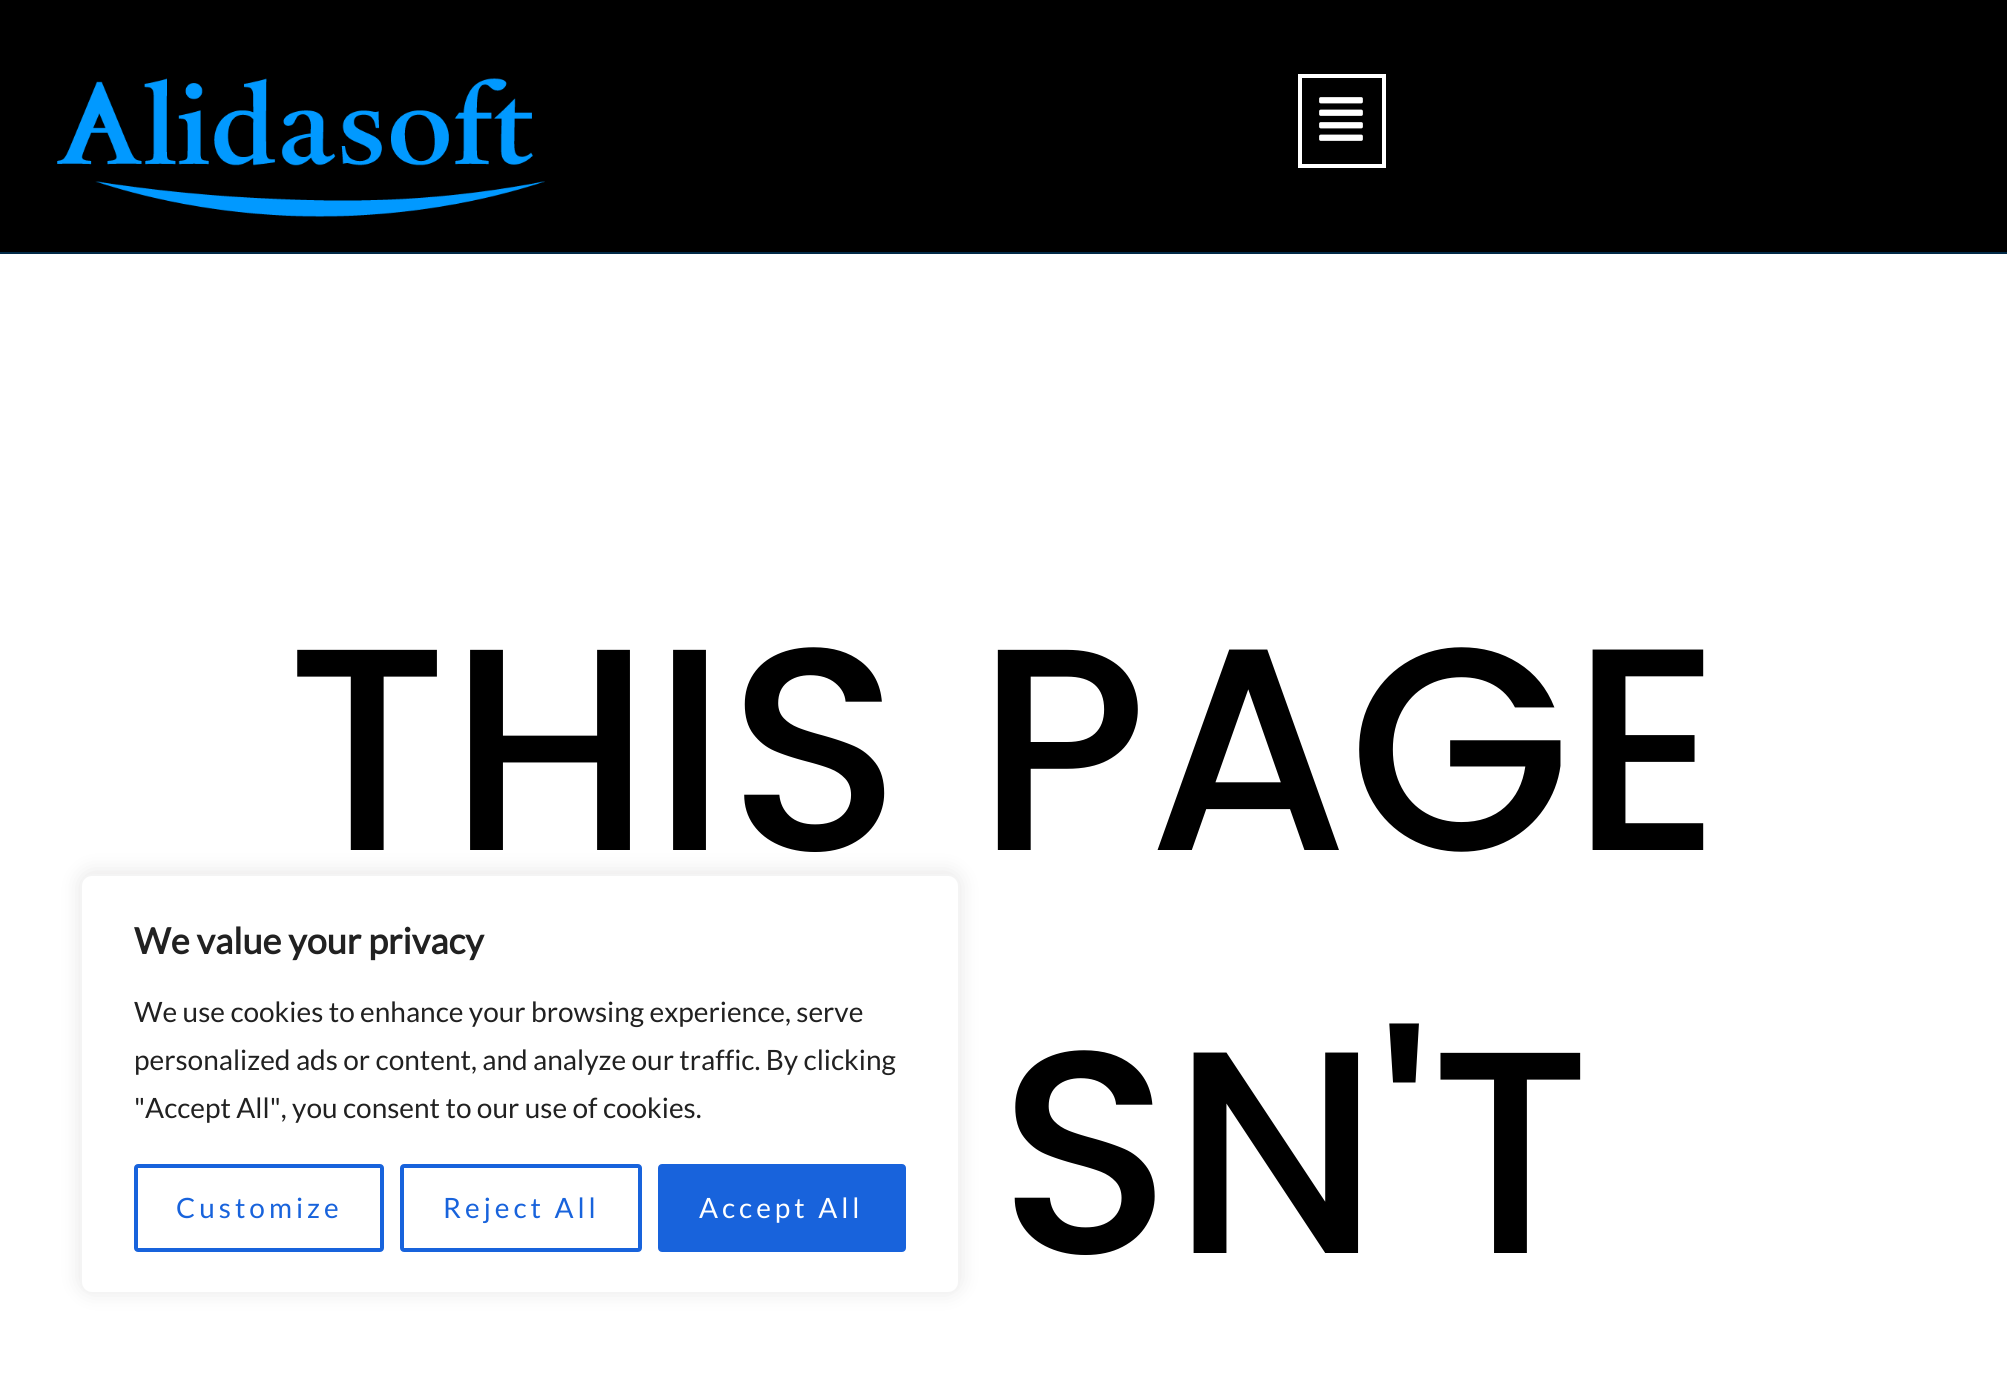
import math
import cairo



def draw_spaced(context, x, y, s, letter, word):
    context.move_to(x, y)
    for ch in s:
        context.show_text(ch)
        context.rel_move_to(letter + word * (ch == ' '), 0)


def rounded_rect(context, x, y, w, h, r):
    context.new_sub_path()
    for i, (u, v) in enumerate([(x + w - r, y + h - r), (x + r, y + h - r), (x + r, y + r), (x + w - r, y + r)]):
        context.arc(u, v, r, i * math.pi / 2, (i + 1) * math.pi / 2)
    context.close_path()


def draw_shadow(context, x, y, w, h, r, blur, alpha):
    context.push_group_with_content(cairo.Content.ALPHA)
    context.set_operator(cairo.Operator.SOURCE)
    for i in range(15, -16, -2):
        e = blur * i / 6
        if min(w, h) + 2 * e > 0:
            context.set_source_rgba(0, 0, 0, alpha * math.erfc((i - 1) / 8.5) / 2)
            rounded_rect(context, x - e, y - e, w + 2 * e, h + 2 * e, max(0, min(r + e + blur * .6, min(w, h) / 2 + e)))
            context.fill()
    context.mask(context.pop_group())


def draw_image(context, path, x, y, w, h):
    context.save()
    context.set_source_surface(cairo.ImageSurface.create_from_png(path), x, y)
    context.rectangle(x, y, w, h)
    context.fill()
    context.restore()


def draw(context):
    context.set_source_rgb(1, 1, 1)
    context.paint()
    context.set_source_rgb(0, 0, 0)
    context.rectangle(0, 0, 2007, 252)
    context.fill()
    context.set_source_rgb(1 / 255, 42 / 255, 71 / 255)
    context.rectangle(0, 252, 2007, 2)
    context.fill()
    draw_image(context, "images/1.png", 57, 78, 488, 139)
    context.rectangle(1300, 76, 84, 90)
    context.set_source_rgb(1, 1, 1)
    context.set_line_width(4)
    context.stroke()
    draw_image(context, "images/2.png", 1319, 97, 44, 44)
    context.set_source_rgb(172 / 255, 171 / 255, 171 / 255)
    draw_shadow(context, 80, 872, 880, 420, 12, 10, 0.3)
    context.set_source_rgb(1, 1, 1)
    rounded_rect(context, 81, 875, 878, 418, 11)
    context.fill_preserve()
    context.set_source_rgb(244 / 255, 244 / 255, 244 / 255)
    context.set_line_width(2)
    context.stroke()
    rounded_rect(context, 136, 1166, 246, 84, 2)
    context.set_source_rgb(24 / 255, 99 / 255, 220 / 255)
    context.set_line_width(4)
    context.stroke()
    rounded_rect(context, 402, 1166, 238, 84, 2)
    context.stroke()
    rounded_rect(context, 660, 1166, 244, 84, 2)
    context.fill_preserve()
    context.stroke()
    context.select_font_face("Poppins Medium")
    context.set_font_size(288)
    context.set_source_rgb(0, 0, 0)
    context.move_to(286, 850)
    context.show_text("THIS PAGE")
    context.move_to(998, 1253)
    context.show_text("SN'T")
    context.select_font_face("Lato", cairo.FontSlant.NORMAL, cairo.FontWeight.BOLD)
    context.set_font_size(36)
    context.set_source_rgb(33 / 255, 33 / 255, 33 / 255)
    context.move_to(134, 954)
    context.show_text("We value your privacy")
    context.select_font_face("Lato")
    context.set_font_size(28)
    context.move_to(134, 1022)
    context.show_text("We use cookies to enhance your browsing experience, serve")
    context.move_to(134, 1070)
    context.show_text("personalized ads or content, and analyze our traffic. By clicking")
    context.move_to(134, 1118)
    context.show_text("\"Accept All\", you consent to our use of cookies.")
    context.set_source_rgb(24 / 255, 99 / 255, 220 / 255)
    draw_spaced(context, 176, 1218, "Customize", 4, 0)
    draw_spaced(context, 443, 1218, "Reject All", 4, 0)
    context.set_source_rgb(1, 1, 1)
    draw_spaced(context, 699, 1218, "Accept All", 4, 0)


surface = cairo.ImageSurface(cairo.Format.RGB24, 2007, 1374)
context = cairo.Context(surface)
options = cairo.FontOptions()
options.set_hint_metrics(cairo.HintMetrics.OFF)
options.set_hint_style(cairo.HintStyle.NONE)
context.set_font_options(options)
context.set_miter_limit(4)
draw(context)
surface.write_to_png("out.png")
